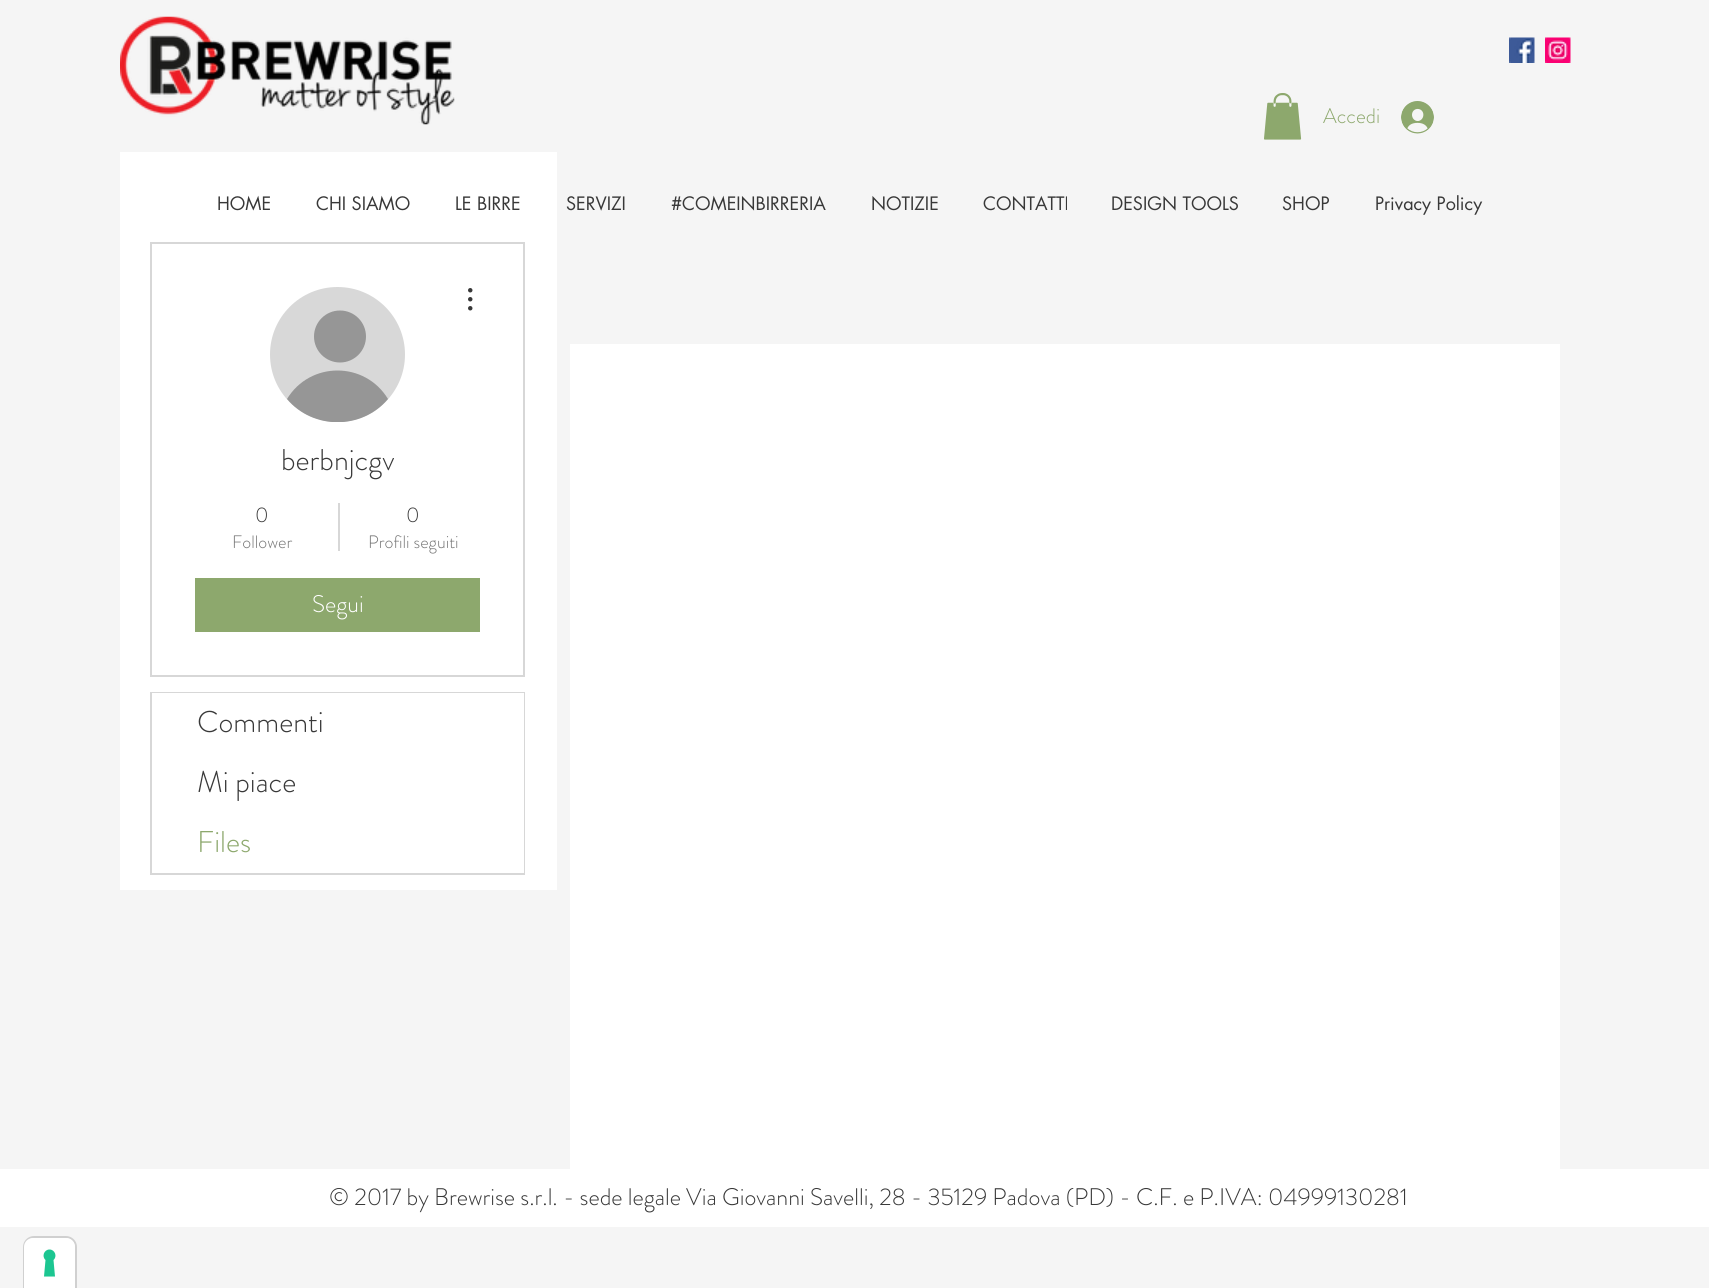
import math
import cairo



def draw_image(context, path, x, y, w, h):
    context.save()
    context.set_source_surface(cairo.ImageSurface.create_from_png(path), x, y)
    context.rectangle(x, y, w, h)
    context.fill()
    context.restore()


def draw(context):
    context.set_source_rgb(245 / 255, 245 / 255, 245 / 255)
    context.paint()
    draw_image(context, "images/1.png", 120, 16, 335, 109)
    draw_image(context, "images/2.png", 1509, 37, 26, 26)
    draw_image(context, "images/3.png", 1545, 37, 26, 26)
    draw_image(context, "images/4.png", 1264, 93, 38, 47)
    draw_image(context, "images/5.png", 1401, 101, 33, 33)
    context.set_source_rgb(1, 1, 1)
    context.rectangle(120, 152, 437, 738)
    context.fill()
    context.rectangle(151, 243, 373, 433)
    context.set_source_rgb(215 / 255, 215 / 255, 215 / 255)
    context.stroke()
    context.set_source_rgb(216 / 255, 216 / 255, 216 / 255)
    context.arc(337.5, 354.5, 67.5, 0, 2 * math.pi)
    context.fill()
    context.set_source_rgb(150 / 255, 150 / 255, 150 / 255)
    context.arc(340, 336.5, 26, 0, 2 * math.pi)
    context.fill()
    context.save()
    context.rectangle(270, 287, 135, 135)
    context.clip()
    context.new_path()
    context.move_to(388, 399)
    context.curve_to(362, 430, 313, 430, 287, 399)
    context.curve_to(310, 361, 365, 361, 388, 399)
    context.close_path()
    context.fill()
    context.restore()
    draw_image(context, "images/6.png", 468, 288, 5, 23)
    context.set_source_rgb(215 / 255, 215 / 255, 215 / 255)
    context.rectangle(338, 503, 2, 48)
    context.fill()
    context.set_source_rgb(141 / 255, 168 / 255, 109 / 255)
    context.rectangle(195, 578, 285, 54)
    context.fill()
    context.rectangle(151, 693, 373, 181)
    context.set_source_rgb(215 / 255, 215 / 255, 215 / 255)
    context.stroke()
    context.set_source_rgb(1, 1, 1)
    context.rectangle(152, 693, 372, 60)
    context.fill()
    context.rectangle(523, 753, 1, 120)
    context.fill()
    context.rectangle(570, 344, 990, 825)
    context.fill()
    context.rectangle(0, 1169, 1709, 58)
    context.fill()
    context.new_path()
    context.move_to(34, 1237)
    context.line_to(66, 1237)
    context.curve_to(71.5, 1237, 76, 1241.5, 76, 1247)
    context.line_to(76, 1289)
    context.line_to(24, 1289)
    context.line_to(24, 1247)
    context.curve_to(24, 1241.5, 28.5, 1237, 34, 1237)
    context.close_path()
    context.set_source_rgb(208 / 255, 208 / 255, 208 / 255)
    context.stroke()
    context.set_source_rgb(1, 1, 1)
    context.new_path()
    context.move_to(33, 1238)
    context.line_to(66, 1238)
    context.curve_to(71, 1238, 75, 1242, 75, 1247)
    context.line_to(75, 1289)
    context.line_to(24, 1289)
    context.line_to(24, 1247)
    context.curve_to(24, 1242, 28, 1238, 33, 1238)
    context.close_path()
    context.fill()
    context.set_source_rgb(28 / 255, 198 / 255, 145 / 255)
    context.set_fill_rule(cairo.FillRule.EVEN_ODD)
    context.new_path()
    context.move_to(49.5, 1249.5)
    context.curve_to(55, 1249.5, 57.5, 1256.5, 53.5, 1260)
    context.line_to(55, 1276.5)
    context.line_to(44, 1276.5)
    context.line_to(45.5, 1260)
    context.curve_to(41.5, 1256.5, 44, 1249.5, 49.5, 1249.5)
    context.close_path()
    context.fill()
    context.select_font_face("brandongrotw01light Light")
    context.set_font_size(21)
    context.set_source_rgb(141 / 255, 168 / 255, 109 / 255)
    context.move_to(1323, 123)
    context.show_text("Accedi")
    context.select_font_face("futura")
    context.set_font_size(18)
    context.set_source_rgb(56 / 255, 56 / 255, 56 / 255)
    context.move_to(217, 210)
    context.show_text("HOME")
    context.move_to(316, 210)
    context.show_text("CHI SIAMO")
    context.move_to(455, 210)
    context.show_text("LE BIRRE")
    context.move_to(566, 210)
    context.show_text("SERVIZI")
    context.move_to(671, 210)
    context.show_text("#COMEINBIRRERIA")
    context.move_to(871, 210)
    context.show_text("NOTIZIE")
    context.move_to(983, 210)
    context.show_text("CONTATTI")
    context.move_to(1111, 210)
    context.show_text("DESIGN TOOLS")
    context.move_to(1282, 210)
    context.show_text("SHOP")
    context.move_to(1375, 210)
    context.show_text("Privacy Policy")
    context.select_font_face("brandongrotw01light Light")
    context.set_font_size(30)
    context.move_to(281, 470)
    context.show_text("berbnjcgv")
    context.set_font_size(21)
    context.move_to(255, 522)
    context.show_text("0")
    context.set_font_size(18)
    context.set_source_rgb(116 / 255, 116 / 255, 116 / 255)
    context.move_to(232, 548)
    context.show_text("Follower")
    context.set_font_size(21)
    context.set_source_rgb(56 / 255, 56 / 255, 56 / 255)
    context.move_to(406, 522)
    context.show_text("0")
    context.set_font_size(18)
    context.set_source_rgb(116 / 255, 116 / 255, 116 / 255)
    context.move_to(368, 548)
    context.show_text("Profili seguiti")
    context.set_font_size(24)
    context.set_source_rgb(1, 1, 1)
    context.move_to(312, 612)
    context.show_text("Segui")
    context.set_font_size(30)
    context.set_source_rgb(56 / 255, 56 / 255, 56 / 255)
    context.move_to(197, 732)
    context.show_text("Commenti")
    context.move_to(197, 792)
    context.show_text("Mi piace")
    context.set_source_rgb(141 / 255, 168 / 255, 109 / 255)
    context.move_to(197, 852)
    context.show_text("Files")
    context.set_font_size(24)
    context.set_source_rgb(56 / 255, 56 / 255, 56 / 255)
    context.move_to(329, 1205)
    context.show_text("© 2017 by Brewrise s.r.l. - sede legale Via Giovanni Savelli, 28 - 35129 Padova (PD) - C.F. e P.IVA: 04999130281")


surface = cairo.ImageSurface(cairo.Format.RGB24, 1709, 1288)
context = cairo.Context(surface)
options = cairo.FontOptions()
options.set_hint_metrics(cairo.HintMetrics.OFF)
options.set_hint_style(cairo.HintStyle.NONE)
context.set_font_options(options)
context.set_miter_limit(4)
draw(context)
surface.write_to_png("out.png")
